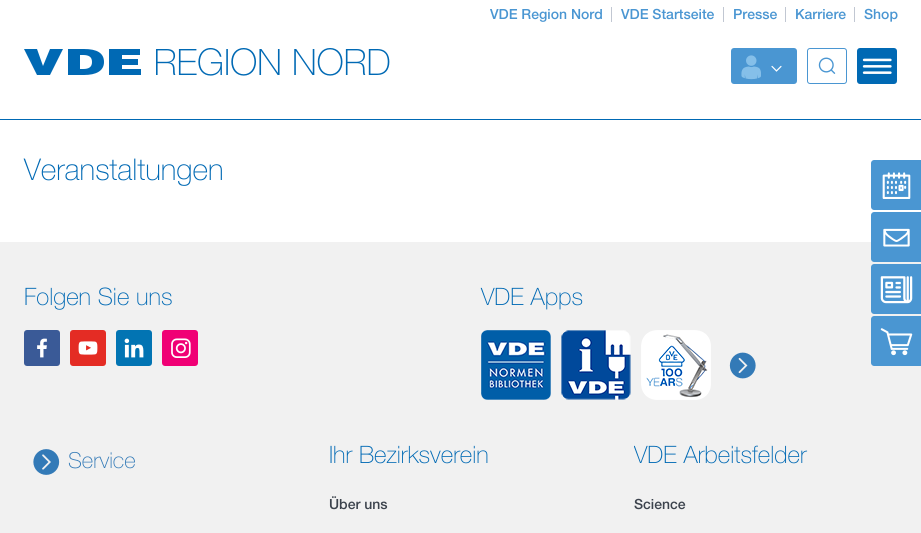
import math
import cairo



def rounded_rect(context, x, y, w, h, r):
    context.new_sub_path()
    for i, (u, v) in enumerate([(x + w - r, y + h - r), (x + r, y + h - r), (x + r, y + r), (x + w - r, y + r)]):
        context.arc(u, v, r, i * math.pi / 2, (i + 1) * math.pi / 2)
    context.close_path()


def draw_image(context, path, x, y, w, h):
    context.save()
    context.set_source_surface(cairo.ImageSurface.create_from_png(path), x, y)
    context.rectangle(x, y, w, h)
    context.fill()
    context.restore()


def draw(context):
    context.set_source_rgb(1, 1, 1)
    context.paint()
    context.set_source_rgb(0, 105 / 255, 180 / 255)
    context.rectangle(0, 119, 921, 1)
    context.fill()
    context.set_source_rgb(193 / 255, 199 / 255, 210 / 255)
    context.rectangle(611, 7, 1, 15)
    context.fill()
    context.rectangle(723, 7, 1, 15)
    context.fill()
    context.rectangle(785, 7, 1, 15)
    context.fill()
    context.rectangle(854, 7, 1, 15)
    context.fill()
    context.set_source_rgb(0, 105 / 255, 180 / 255)
    context.new_path()
    context.move_to(24, 49)
    context.line_to(37, 49)
    context.line_to(43, 66)
    context.line_to(50, 49)
    context.line_to(63, 49)
    context.line_to(50, 75)
    context.line_to(37, 75)
    context.close_path()
    context.move_to(80, 55)
    context.line_to(80, 69)
    context.line_to(83, 69)
    context.curve_to(89, 69, 92, 67, 92, 62)
    context.curve_to(92, 57, 89, 55, 83, 55)
    context.close_path()
    context.move_to(84, 75)
    context.line_to(68, 75)
    context.line_to(68, 49)
    context.line_to(84, 49)
    context.curve_to(97, 49, 104, 53, 104, 62)
    context.curve_to(104, 71, 96, 75, 84, 75)
    context.close_path()
    context.move_to(141, 75)
    context.line_to(141, 69)
    context.line_to(122, 69)
    context.line_to(122, 65)
    context.line_to(138, 65)
    context.line_to(138, 59)
    context.line_to(122, 59)
    context.line_to(122, 55)
    context.line_to(140, 55)
    context.line_to(140, 49)
    context.line_to(109, 49)
    context.line_to(109, 75)
    context.close_path()
    context.fill()
    draw_image(context, "images/1.png", 156, 48, 234, 28)
    context.set_source_rgb(74 / 255, 150 / 255, 210 / 255)
    rounded_rect(context, 731, 48, 66, 36, 3)
    context.fill()
    draw_image(context, "images/2.png", 741, 55, 20, 25)
    draw_image(context, "images/3.png", 771, 65, 11, 7)
    rounded_rect(context, 807.5, 48.5, 39, 35, 2.5)
    context.set_line_width(1)
    context.stroke()
    draw_image(context, "images/4.png", 818, 57, 18, 17)
    context.set_source_rgb(0, 105 / 255, 180 / 255)
    rounded_rect(context, 857, 48, 40, 36, 3)
    context.fill()
    draw_image(context, "images/5.png", 862, 58, 30, 16)
    context.set_source_rgb(74 / 255, 150 / 255, 210 / 255)
    context.new_path()
    context.move_to(874, 160)
    context.line_to(921, 160)
    context.line_to(921, 210)
    context.line_to(874, 210)
    context.curve_to(872.5, 210, 871, 208.5, 871, 207)
    context.line_to(871, 163)
    context.curve_to(871, 161.5, 872.5, 160, 874, 160)
    context.close_path()
    context.fill()
    draw_image(context, "images/6.png", 882, 172, 29, 27)
    context.set_source_rgb(241 / 255, 241 / 255, 241 / 255)
    context.rectangle(0, 242, 921, 291)
    context.fill()
    context.set_source_rgb(74 / 255, 150 / 255, 210 / 255)
    context.new_path()
    context.move_to(874, 212)
    context.line_to(921, 212)
    context.line_to(921, 262)
    context.line_to(874, 262)
    context.curve_to(872.5, 262, 871, 260.5, 871, 259)
    context.line_to(871, 215)
    context.curve_to(871, 213.5, 872.5, 212, 874, 212)
    context.close_path()
    context.fill()
    draw_image(context, "images/7.png", 883, 228, 27, 19)
    context.new_path()
    context.move_to(874, 264)
    context.line_to(921, 264)
    context.line_to(921, 314)
    context.line_to(874, 314)
    context.curve_to(872.5, 314, 871, 312.5, 871, 311)
    context.line_to(871, 267)
    context.curve_to(871, 265.5, 872.5, 264, 874, 264)
    context.close_path()
    context.fill()
    draw_image(context, "images/8.png", 880, 276, 33, 28)
    context.new_path()
    context.move_to(874, 316)
    context.line_to(921, 316)
    context.line_to(921, 366)
    context.line_to(874, 366)
    context.curve_to(872.5, 366, 871, 364.5, 871, 363)
    context.line_to(871, 319)
    context.curve_to(871, 317.5, 872.5, 316, 874, 316)
    context.close_path()
    context.fill()
    draw_image(context, "images/9.png", 880, 328, 33, 28)
    context.set_source_rgb(58 / 255, 90 / 255, 151 / 255)
    rounded_rect(context, 24, 330, 36, 36, 3)
    context.fill()
    draw_image(context, "images/10.png", 37, 338, 10, 20)
    context.set_source_rgb(228 / 255, 44 / 255, 36 / 255)
    rounded_rect(context, 70, 330, 36, 36, 3)
    context.fill()
    draw_image(context, "images/11.png", 78, 341, 20, 14)
    context.set_source_rgb(2 / 255, 116 / 255, 179 / 255)
    rounded_rect(context, 116, 330, 36, 36, 3)
    context.fill()
    draw_image(context, "images/12.png", 124, 338, 20, 20)
    context.set_source_rgb(240 / 255, 0, 117 / 255)
    rounded_rect(context, 162, 330, 36, 36, 3)
    context.fill()
    draw_image(context, "images/13.png", 171, 338, 20, 20)
    draw_image(context, "images/14.png", 481, 330, 70, 70)
    draw_image(context, "images/15.png", 561, 330, 70, 70)
    draw_image(context, "images/16.png", 641, 330, 70, 70)
    draw_image(context, "images/17.png", 729, 352, 27, 27)
    draw_image(context, "images/18.png", 33, 449, 27, 26)
    context.select_font_face("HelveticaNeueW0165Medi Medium")
    context.set_font_size(14)
    context.set_source_rgb(74 / 255, 150 / 255, 210 / 255)
    context.move_to(490, 19)
    context.show_text("VDE Region Nord")
    context.move_to(621, 19)
    context.show_text("VDE Startseite")
    context.move_to(733, 19)
    context.show_text("Presse")
    context.move_to(795, 19)
    context.show_text("Karriere")
    context.move_to(864, 19)
    context.show_text("Shop")
    context.select_font_face("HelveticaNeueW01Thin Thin")
    context.set_font_size(30)
    context.set_source_rgb(0, 105 / 255, 180 / 255)
    context.move_to(24, 180)
    context.show_text("Veranstaltungen")
    context.set_font_size(24)
    context.move_to(24, 305)
    context.show_text("Folgen Sie uns")
    context.move_to(481, 305)
    context.show_text("VDE Apps")
    context.set_font_size(22)
    context.set_source_rgb(51 / 255, 122 / 255, 183 / 255)
    context.move_to(68, 468)
    context.show_text("Service")
    context.set_font_size(24)
    context.set_source_rgb(0, 105 / 255, 180 / 255)
    context.move_to(329, 463)
    context.show_text("Ihr Bezirksverein")
    context.select_font_face("HelveticaNeueW0165Medi Medium")
    context.set_font_size(14)
    context.set_source_rgb(60 / 255, 67 / 255, 77 / 255)
    context.move_to(329, 509)
    context.show_text("Über uns")
    context.save()
    context.rectangle(634, 440, 262, 28)
    context.clip()
    context.select_font_face("HelveticaNeueW01Thin Thin")
    context.set_font_size(24)
    context.set_source_rgb(0, 105 / 255, 180 / 255)
    context.move_to(634, 463)
    context.show_text("VDE Arbeitsfelder")
    context.restore()
    context.move_to(634, 509)
    context.show_text("Science")


surface = cairo.ImageSurface(cairo.Format.RGB24, 921, 533)
context = cairo.Context(surface)
options = cairo.FontOptions()
options.set_hint_metrics(cairo.HintMetrics.OFF)
options.set_hint_style(cairo.HintStyle.NONE)
context.set_font_options(options)
context.set_miter_limit(4)
draw(context)
surface.write_to_png("out.png")
